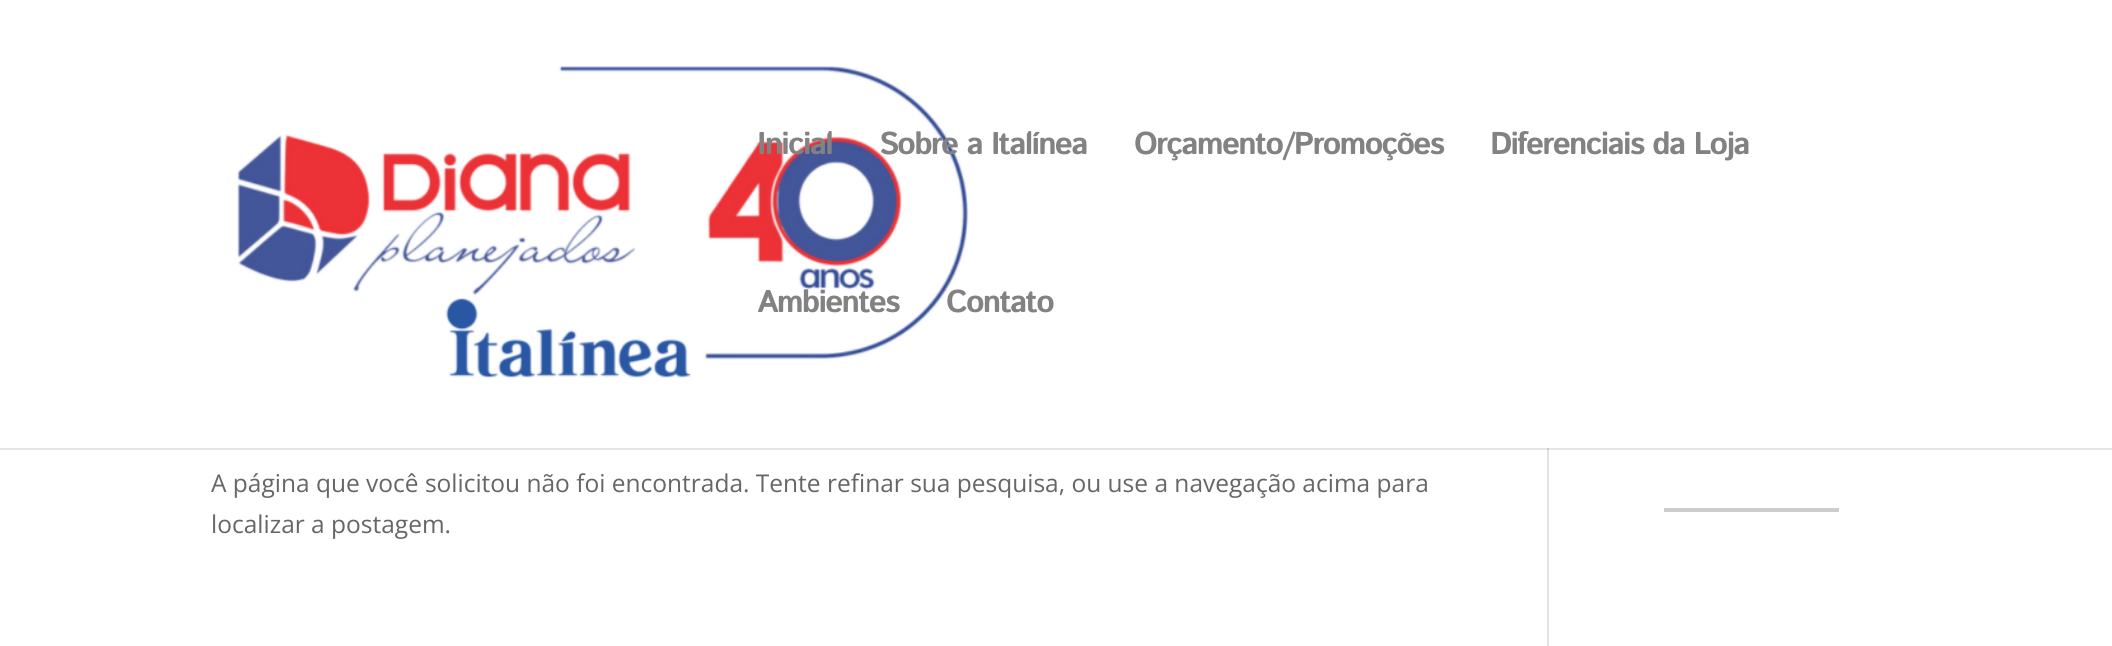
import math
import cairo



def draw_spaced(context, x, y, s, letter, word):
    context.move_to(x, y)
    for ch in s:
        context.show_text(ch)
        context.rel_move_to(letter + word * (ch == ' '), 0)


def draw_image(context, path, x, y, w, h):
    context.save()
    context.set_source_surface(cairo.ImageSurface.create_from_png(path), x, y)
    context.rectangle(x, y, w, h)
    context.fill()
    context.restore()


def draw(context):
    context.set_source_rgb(1, 1, 1)
    context.paint()
    context.set_source_rgb(230 / 255, 230 / 255, 230 / 255)
    context.rectangle(0, 448, 2112, 2)
    context.fill()
    draw_image(context, "images/1.png", 237, 66, 732, 312)
    context.set_source_rgb(204 / 255, 204 / 255, 204 / 255)
    context.rectangle(1664, 508, 175, 4)
    context.fill()
    context.set_source_rgb(226 / 255, 226 / 255, 226 / 255)
    context.rectangle(1547, 450, 2, 196)
    context.fill()
    context.set_source_rgb(203 / 255, 203 / 255, 203 / 255)
    context.rectangle(1547, 448, 2, 2)
    context.fill()
    context.select_font_face("Istok Web", cairo.FontSlant.NORMAL, cairo.FontWeight.BOLD)
    context.set_font_size(31.5)
    context.set_source_rgb(130 / 255, 130 / 255, 130 / 255)
    draw_spaced(context, 757, 154, "Inicial", -1.75, 0)
    draw_spaced(context, 879, 154, "Sobre a Italínea", -1.75, 0)
    draw_spaced(context, 1134, 154, "Orçamento/Promoções", -1.75, 0)
    draw_spaced(context, 1490, 154, "Diferenciais da Loja", -1.75, 0)
    draw_spaced(context, 757, 312, "Ambientes", -1.75, 0)
    draw_spaced(context, 946, 312, "Contato", -1.75, 0)
    context.select_font_face("Open Sans")
    context.set_font_size(24.5)
    context.set_source_rgb(102 / 255, 102 / 255, 102 / 255)
    context.move_to(211, 492)
    context.show_text("A página que você solicitou não foi encontrada. Tente refinar sua pesquisa, ou use a navegação acima para")
    context.move_to(211, 533)
    context.show_text("localizar a postagem.")


surface = cairo.ImageSurface(cairo.Format.RGB24, 2112, 646)
context = cairo.Context(surface)
options = cairo.FontOptions()
options.set_hint_metrics(cairo.HintMetrics.OFF)
options.set_hint_style(cairo.HintStyle.NONE)
context.set_font_options(options)
context.set_miter_limit(4)
draw(context)
surface.write_to_png("out.png")
